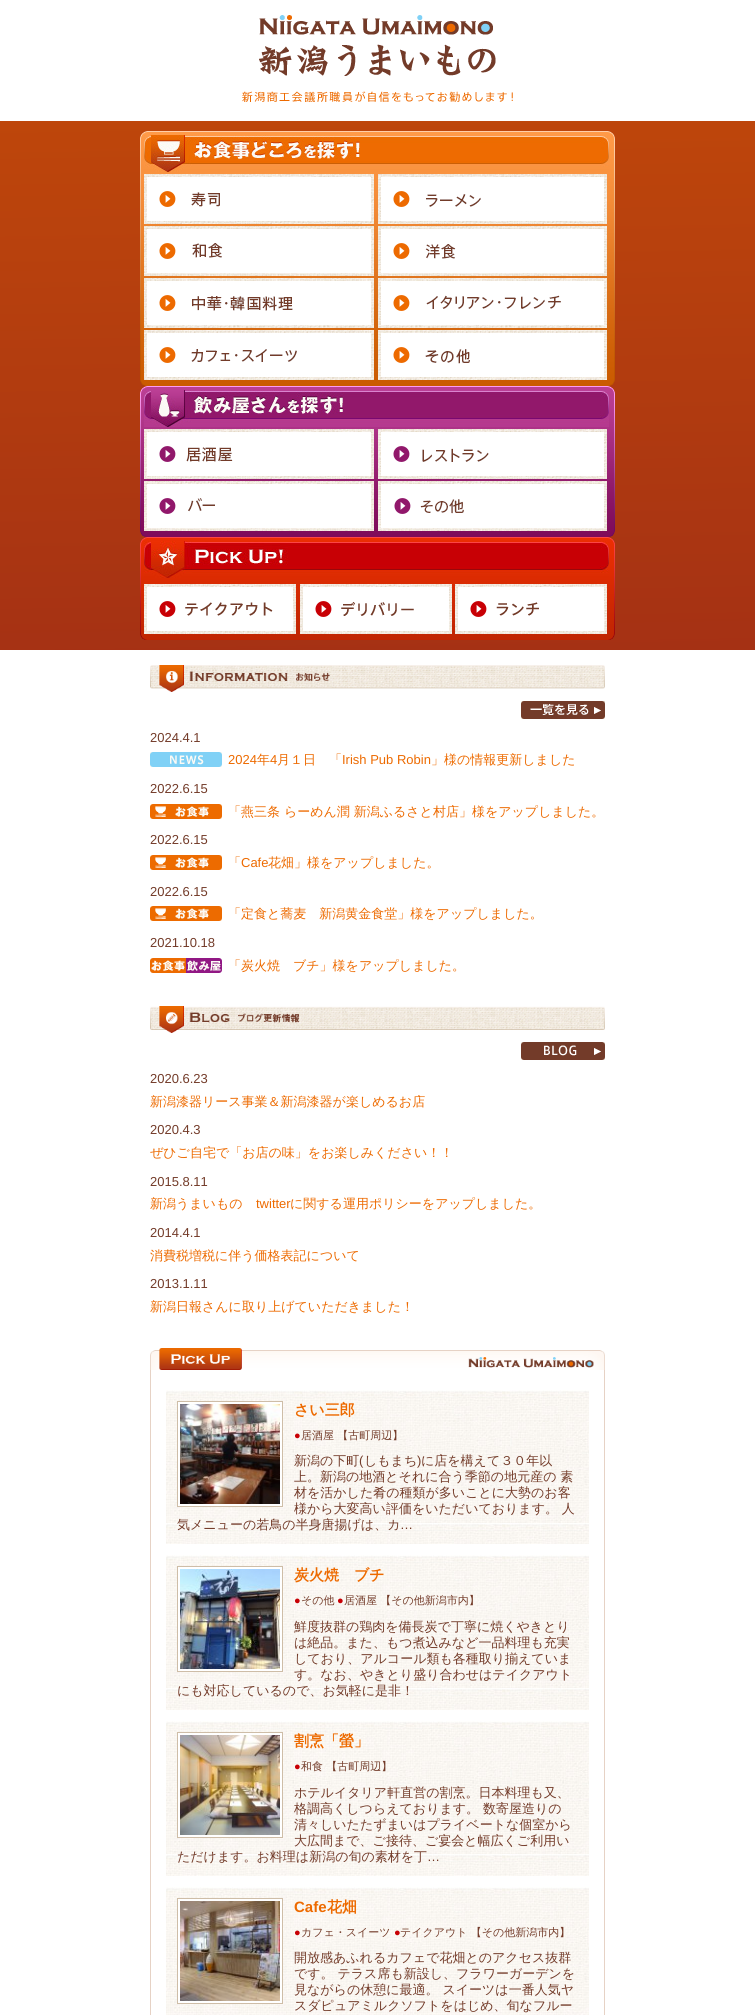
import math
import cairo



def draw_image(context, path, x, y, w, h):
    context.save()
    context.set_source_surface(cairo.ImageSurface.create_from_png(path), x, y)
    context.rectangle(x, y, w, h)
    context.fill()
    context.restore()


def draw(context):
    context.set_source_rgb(1, 1, 1)
    context.paint()
    draw_image(context, "images/1.png", 259, 15, 237, 61)
    draw_image(context, "images/2.png", 242, 91, 271, 11)
    gradient = cairo.LinearGradient(373, 114, 382, 657)
    gradient.add_color_stop_rgba(0, 190 / 255, 70 / 255, 11 / 255, 1)
    gradient.add_color_stop_rgba(1, 165 / 255, 49 / 255, 20 / 255, 1)
    context.set_source(gradient)
    context.rectangle(0, 121, 755, 529)
    context.fill()
    draw_image(context, "images/3.png", 140, 131, 475, 255)
    draw_image(context, "images/4.png", 144, 135, 465, 37)
    draw_image(context, "images/5.png", 144, 174, 230, 50)
    draw_image(context, "images/6.png", 378, 174, 229, 50)
    draw_image(context, "images/7.png", 144, 226, 230, 50)
    draw_image(context, "images/8.png", 378, 226, 229, 50)
    draw_image(context, "images/9.png", 144, 278, 230, 50)
    draw_image(context, "images/10.png", 378, 278, 229, 50)
    draw_image(context, "images/11.png", 144, 330, 230, 50)
    draw_image(context, "images/12.png", 378, 330, 229, 50)
    draw_image(context, "images/13.png", 140, 386, 475, 151)
    draw_image(context, "images/14.png", 144, 390, 465, 37)
    draw_image(context, "images/15.png", 144, 429, 230, 50)
    draw_image(context, "images/16.png", 378, 429, 229, 50)
    draw_image(context, "images/17.png", 144, 481, 230, 50)
    draw_image(context, "images/18.png", 378, 481, 229, 50)
    draw_image(context, "images/19.png", 140, 537, 475, 103)
    draw_image(context, "images/20.png", 144, 541, 465, 37)
    draw_image(context, "images/21.png", 144, 584, 152, 50)
    draw_image(context, "images/22.png", 300, 584, 152, 50)
    draw_image(context, "images/23.png", 455, 584, 152, 50)
    draw_image(context, "images/24.png", 150, 665, 455, 27)
    draw_image(context, "images/25.png", 521, 701, 84, 18)
    draw_image(context, "images/26.png", 150, 752, 72, 15)
    draw_image(context, "images/27.png", 150, 804, 72, 15)
    draw_image(context, "images/27.png", 150, 855, 72, 15)
    draw_image(context, "images/27.png", 150, 906, 72, 15)
    draw_image(context, "images/28.png", 150, 958, 72, 15)
    draw_image(context, "images/29.png", 150, 1006, 455, 27)
    draw_image(context, "images/30.png", 521, 1042, 84, 18)
    context.rectangle(150.5, 1348.5, 454, 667)
    context.set_source_rgb(230 / 255, 210 / 255, 197 / 255)
    context.set_line_width(1)
    context.stroke()
    draw_image(context, "images/31.png", 150, 1348, 455, 22)
    draw_image(context, "images/32.png", 166, 1390, 423, 154)
    context.rectangle(177.5, 1401.5, 105, 105)
    context.set_source_rgb(206 / 255, 189 / 255, 167 / 255)
    context.stroke()
    context.rectangle(179, 1403, 102, 102)
    context.set_source_rgb(1, 1, 1)
    context.set_line_width(2)
    context.stroke()
    draw_image(context, "images/33.png", 180, 1404, 100, 100)
    draw_image(context, "images/34.png", 166, 1555, 423, 155)
    context.rectangle(177.5, 1566.5, 105, 105)
    context.set_source_rgb(206 / 255, 189 / 255, 167 / 255)
    context.set_line_width(1)
    context.stroke()
    context.rectangle(179, 1568, 102, 102)
    context.set_source_rgb(1, 1, 1)
    context.set_line_width(2)
    context.stroke()
    draw_image(context, "images/35.png", 180, 1569, 100, 100)
    draw_image(context, "images/34.png", 166, 1721, 423, 155)
    context.rectangle(177.5, 1732.5, 105, 105)
    context.set_source_rgb(206 / 255, 189 / 255, 167 / 255)
    context.set_line_width(1)
    context.stroke()
    context.rectangle(179, 1734, 102, 102)
    context.set_source_rgb(1, 1, 1)
    context.set_line_width(2)
    context.stroke()
    draw_image(context, "images/36.png", 180, 1735, 100, 100)
    draw_image(context, "images/37.png", 166, 1887, 423, 128)
    context.rectangle(177.5, 1898.5, 105, 105)
    context.set_source_rgb(206 / 255, 189 / 255, 167 / 255)
    context.set_line_width(1)
    context.stroke()
    context.rectangle(179, 1900, 102, 102)
    context.set_source_rgb(1, 1, 1)
    context.set_line_width(2)
    context.stroke()
    draw_image(context, "images/38.png", 180, 1901, 100, 100)
    context.select_font_face("Liberation Sans")
    context.set_font_size(13)
    context.set_source_rgb(115 / 255, 59 / 255, 41 / 255)
    context.move_to(150, 742)
    context.show_text("2024.4.1")
    context.set_source_rgb(237 / 255, 106 / 255, 0)
    context.move_to(228, 764)
    context.show_text("2024")
    context.select_font_face("WenQuanYi Zen Hei Medium")
    context.move_to(257, 764)
    context.show_text("年")
    context.select_font_face("Liberation Sans")
    context.move_to(270, 764)
    context.show_text("4")
    context.select_font_face("WenQuanYi Zen Hei Medium")
    context.move_to(277, 764)
    context.show_text("月１日　「")
    context.select_font_face("Liberation Sans")
    context.move_to(342, 764)
    context.show_text("Irish Pub Robin")
    context.select_font_face("WenQuanYi Zen Hei Medium")
    context.move_to(431, 764)
    context.show_text("」様の情報更新しました")
    context.select_font_face("Liberation Sans")
    context.set_source_rgb(115 / 255, 59 / 255, 41 / 255)
    context.move_to(150, 793)
    context.show_text("2022.6.15")
    context.select_font_face("WenQuanYi Zen Hei Medium")
    context.set_source_rgb(237 / 255, 106 / 255, 0)
    context.move_to(228, 816)
    context.show_text("「燕三条 らーめん潤 新潟ふるさと村店」様をアップしました。")
    context.select_font_face("Liberation Sans")
    context.set_source_rgb(115 / 255, 59 / 255, 41 / 255)
    context.move_to(150, 844)
    context.show_text("2022.6.15")
    context.select_font_face("WenQuanYi Zen Hei Medium")
    context.set_source_rgb(237 / 255, 106 / 255, 0)
    context.move_to(228, 867)
    context.show_text("「")
    context.select_font_face("Liberation Sans")
    context.move_to(241, 867)
    context.show_text("Cafe")
    context.select_font_face("WenQuanYi Zen Hei Medium")
    context.move_to(268, 867)
    context.show_text("花畑」様をアップしました。")
    context.select_font_face("Liberation Sans")
    context.set_source_rgb(115 / 255, 59 / 255, 41 / 255)
    context.move_to(150, 896)
    context.show_text("2022.6.15")
    context.select_font_face("WenQuanYi Zen Hei Medium")
    context.set_source_rgb(237 / 255, 106 / 255, 0)
    context.move_to(228, 918)
    context.show_text("「定食と蕎麦　新潟黄金食堂」様をアップしました。")
    context.select_font_face("Liberation Sans")
    context.set_source_rgb(115 / 255, 59 / 255, 41 / 255)
    context.move_to(150, 947)
    context.show_text("2021.10.18")
    context.select_font_face("WenQuanYi Zen Hei Medium")
    context.set_source_rgb(237 / 255, 106 / 255, 0)
    context.move_to(228, 970)
    context.show_text("「炭火焼　ブチ」様をアップしました。")
    context.select_font_face("Liberation Sans")
    context.set_source_rgb(115 / 255, 59 / 255, 41 / 255)
    context.move_to(150, 1083)
    context.show_text("2020.6.23")
    context.select_font_face("WenQuanYi Zen Hei Medium")
    context.set_source_rgb(237 / 255, 106 / 255, 0)
    context.move_to(150, 1106)
    context.show_text("新潟漆器リース事業＆新潟漆器が楽しめるお店")
    context.select_font_face("Liberation Sans")
    context.set_source_rgb(115 / 255, 59 / 255, 41 / 255)
    context.move_to(150, 1134)
    context.show_text("2020.4.3")
    context.select_font_face("WenQuanYi Zen Hei Medium")
    context.set_source_rgb(237 / 255, 106 / 255, 0)
    context.move_to(150, 1157)
    context.show_text("ぜひご自宅で「お店の味」をお楽しみください！！")
    context.select_font_face("Liberation Sans")
    context.set_source_rgb(115 / 255, 59 / 255, 41 / 255)
    context.move_to(150, 1186)
    context.show_text("2015.8.11")
    context.select_font_face("WenQuanYi Zen Hei Medium")
    context.set_source_rgb(237 / 255, 106 / 255, 0)
    context.move_to(150, 1208)
    context.show_text("新潟うまいもの")
    context.select_font_face("Liberation Sans")
    context.move_to(256, 1208)
    context.show_text("twitter")
    context.select_font_face("WenQuanYi Zen Hei Medium")
    context.move_to(290, 1208)
    context.show_text("に関する運用ポリシーをアップしました。")
    context.select_font_face("Liberation Sans")
    context.set_source_rgb(115 / 255, 59 / 255, 41 / 255)
    context.move_to(150, 1237)
    context.show_text("2014.4.1")
    context.select_font_face("WenQuanYi Zen Hei Medium")
    context.set_source_rgb(237 / 255, 106 / 255, 0)
    context.move_to(150, 1260)
    context.show_text("消費税増税に伴う価格表記について")
    context.select_font_face("Liberation Sans")
    context.set_source_rgb(115 / 255, 59 / 255, 41 / 255)
    context.move_to(150, 1288)
    context.show_text("2013.1.11")
    context.select_font_face("WenQuanYi Zen Hei Medium")
    context.set_source_rgb(237 / 255, 106 / 255, 0)
    context.move_to(150, 1311)
    context.show_text("新潟日報さんに取り上げていただきました！")
    context.select_font_face("WenQuanYi Zen Hei", cairo.FontSlant.NORMAL, cairo.FontWeight.BOLD)
    context.set_font_size(15)
    context.move_to(294, 1415)
    context.show_text("さい三郎")
    context.select_font_face("Liberation Sans")
    context.set_font_size(11)
    context.set_source_rgb(200 / 255, 0, 5 / 255)
    context.move_to(294, 1439)
    context.show_text("●")
    context.select_font_face("WenQuanYi Zen Hei Medium")
    context.set_source_rgb(115 / 255, 59 / 255, 41 / 255)
    context.move_to(301, 1439)
    context.show_text("居酒屋 【古町周辺】")
    context.set_font_size(13)
    context.move_to(294, 1465)
    context.show_text("新潟の下町")
    context.select_font_face("Liberation Sans")
    context.move_to(359, 1465)
    context.show_text("(")
    context.select_font_face("WenQuanYi Zen Hei Medium")
    context.move_to(364, 1465)
    context.show_text("しもまち")
    context.select_font_face("Liberation Sans")
    context.move_to(417, 1465)
    context.show_text(")")
    context.select_font_face("WenQuanYi Zen Hei Medium")
    context.move_to(421, 1465)
    context.show_text("に店を構えて３０年以")
    context.move_to(294, 1481)
    context.show_text("上。新潟の地酒とそれに合う季節の地元産の 素")
    context.move_to(294, 1497)
    context.show_text("材を活かした肴の種類が多いことに大勢のお客")
    context.move_to(294, 1513)
    context.show_text("様から大変高い評価をいただいております。 人")
    context.move_to(177, 1529)
    context.show_text("気メニューの若鳥の半身唐揚げは、カ")
    context.select_font_face("Liberation Sans")
    context.move_to(400, 1529)
    context.show_text("…")
    context.select_font_face("WenQuanYi Zen Hei", cairo.FontSlant.NORMAL, cairo.FontWeight.BOLD)
    context.set_font_size(15)
    context.set_source_rgb(237 / 255, 106 / 255, 0)
    context.move_to(294, 1580)
    context.show_text("炭火焼　ブチ")
    context.select_font_face("Liberation Sans")
    context.set_font_size(11)
    context.set_source_rgb(200 / 255, 0, 5 / 255)
    context.move_to(294, 1604)
    context.show_text("●")
    context.select_font_face("WenQuanYi Zen Hei Medium")
    context.set_source_rgb(115 / 255, 59 / 255, 41 / 255)
    context.move_to(301, 1604)
    context.show_text("その他")
    context.select_font_face("Liberation Sans")
    context.set_source_rgb(200 / 255, 0, 5 / 255)
    context.move_to(337, 1604)
    context.show_text("●")
    context.select_font_face("WenQuanYi Zen Hei Medium")
    context.set_source_rgb(115 / 255, 59 / 255, 41 / 255)
    context.move_to(344, 1604)
    context.show_text("居酒屋 【その他新潟市内】")
    context.set_font_size(13)
    context.move_to(294, 1631)
    context.show_text("鮮度抜群の鶏肉を備長炭で丁寧に焼くやきとり")
    context.move_to(294, 1647)
    context.show_text("は絶品。また、もつ煮込みなど一品料理も充実")
    context.move_to(294, 1663)
    context.show_text("しており、アルコール類も各種取り揃えていま")
    context.move_to(294, 1679)
    context.show_text("す。なお、やきとり盛り合わせはテイクアウト")
    context.move_to(177, 1695)
    context.show_text("にも対応しているので、お気軽に是非！")
    context.select_font_face("WenQuanYi Zen Hei", cairo.FontSlant.NORMAL, cairo.FontWeight.BOLD)
    context.set_font_size(15)
    context.set_source_rgb(237 / 255, 106 / 255, 0)
    context.move_to(294, 1746)
    context.show_text("割烹「螢」")
    context.select_font_face("Liberation Sans")
    context.set_font_size(11)
    context.set_source_rgb(200 / 255, 0, 5 / 255)
    context.move_to(294, 1770)
    context.show_text("●")
    context.select_font_face("WenQuanYi Zen Hei Medium")
    context.set_source_rgb(115 / 255, 59 / 255, 41 / 255)
    context.move_to(301, 1770)
    context.show_text("和食 【古町周辺】")
    context.set_font_size(13)
    context.move_to(294, 1797)
    context.show_text("ホテルイタリア軒直営の割烹。日本料理も又、")
    context.move_to(294, 1813)
    context.show_text("格調高くしつらえております。 数寄屋造りの")
    context.move_to(294, 1829)
    context.show_text("清々しいたたずまいはプライベートな個室から")
    context.move_to(294, 1845)
    context.show_text("大広間まで、ご接待、ご宴会と幅広くご利用い")
    context.move_to(177, 1861)
    context.show_text("ただけます。お料理は新潟の旬の素材を丁")
    context.select_font_face("Liberation Sans")
    context.move_to(427, 1861)
    context.show_text("…")
    context.select_font_face("Liberation Sans", cairo.FontSlant.NORMAL, cairo.FontWeight.BOLD)
    context.set_font_size(15)
    context.set_source_rgb(237 / 255, 106 / 255, 0)
    context.move_to(294, 1912)
    context.show_text("Cafe")
    context.select_font_face("WenQuanYi Zen Hei", cairo.FontSlant.NORMAL, cairo.FontWeight.BOLD)
    context.move_to(327, 1912)
    context.show_text("花畑")
    context.select_font_face("Liberation Sans")
    context.set_font_size(11)
    context.set_source_rgb(200 / 255, 0, 5 / 255)
    context.move_to(294, 1936)
    context.show_text("●")
    context.select_font_face("WenQuanYi Zen Hei Medium")
    context.set_source_rgb(115 / 255, 59 / 255, 41 / 255)
    context.move_to(301, 1936)
    context.show_text("カフェ・スイーツ")
    context.select_font_face("Liberation Sans")
    context.set_source_rgb(200 / 255, 0, 5 / 255)
    context.move_to(394, 1936)
    context.show_text("●")
    context.select_font_face("WenQuanYi Zen Hei Medium")
    context.set_source_rgb(115 / 255, 59 / 255, 41 / 255)
    context.move_to(400, 1936)
    context.show_text("テイクアウト 【その他新潟市内】")
    context.set_font_size(13)
    context.move_to(294, 1962)
    context.show_text("開放感あふれるカフェで花畑とのアクセス抜群")
    context.move_to(294, 1978)
    context.show_text("です。 テラス席も新設し、フラワーガーデンを")
    context.move_to(294, 1994)
    context.show_text("見ながらの休憩に最適。 スイーツは一番人気ヤ")
    context.move_to(294, 2010)
    context.show_text("スダピュアミルクソフトをはじめ、旬なフルー")


surface = cairo.ImageSurface(cairo.Format.RGB24, 755, 2015)
context = cairo.Context(surface)
options = cairo.FontOptions()
options.set_hint_metrics(cairo.HintMetrics.OFF)
options.set_hint_style(cairo.HintStyle.NONE)
context.set_font_options(options)
context.set_miter_limit(4)
draw(context)
surface.write_to_png("out.png")
